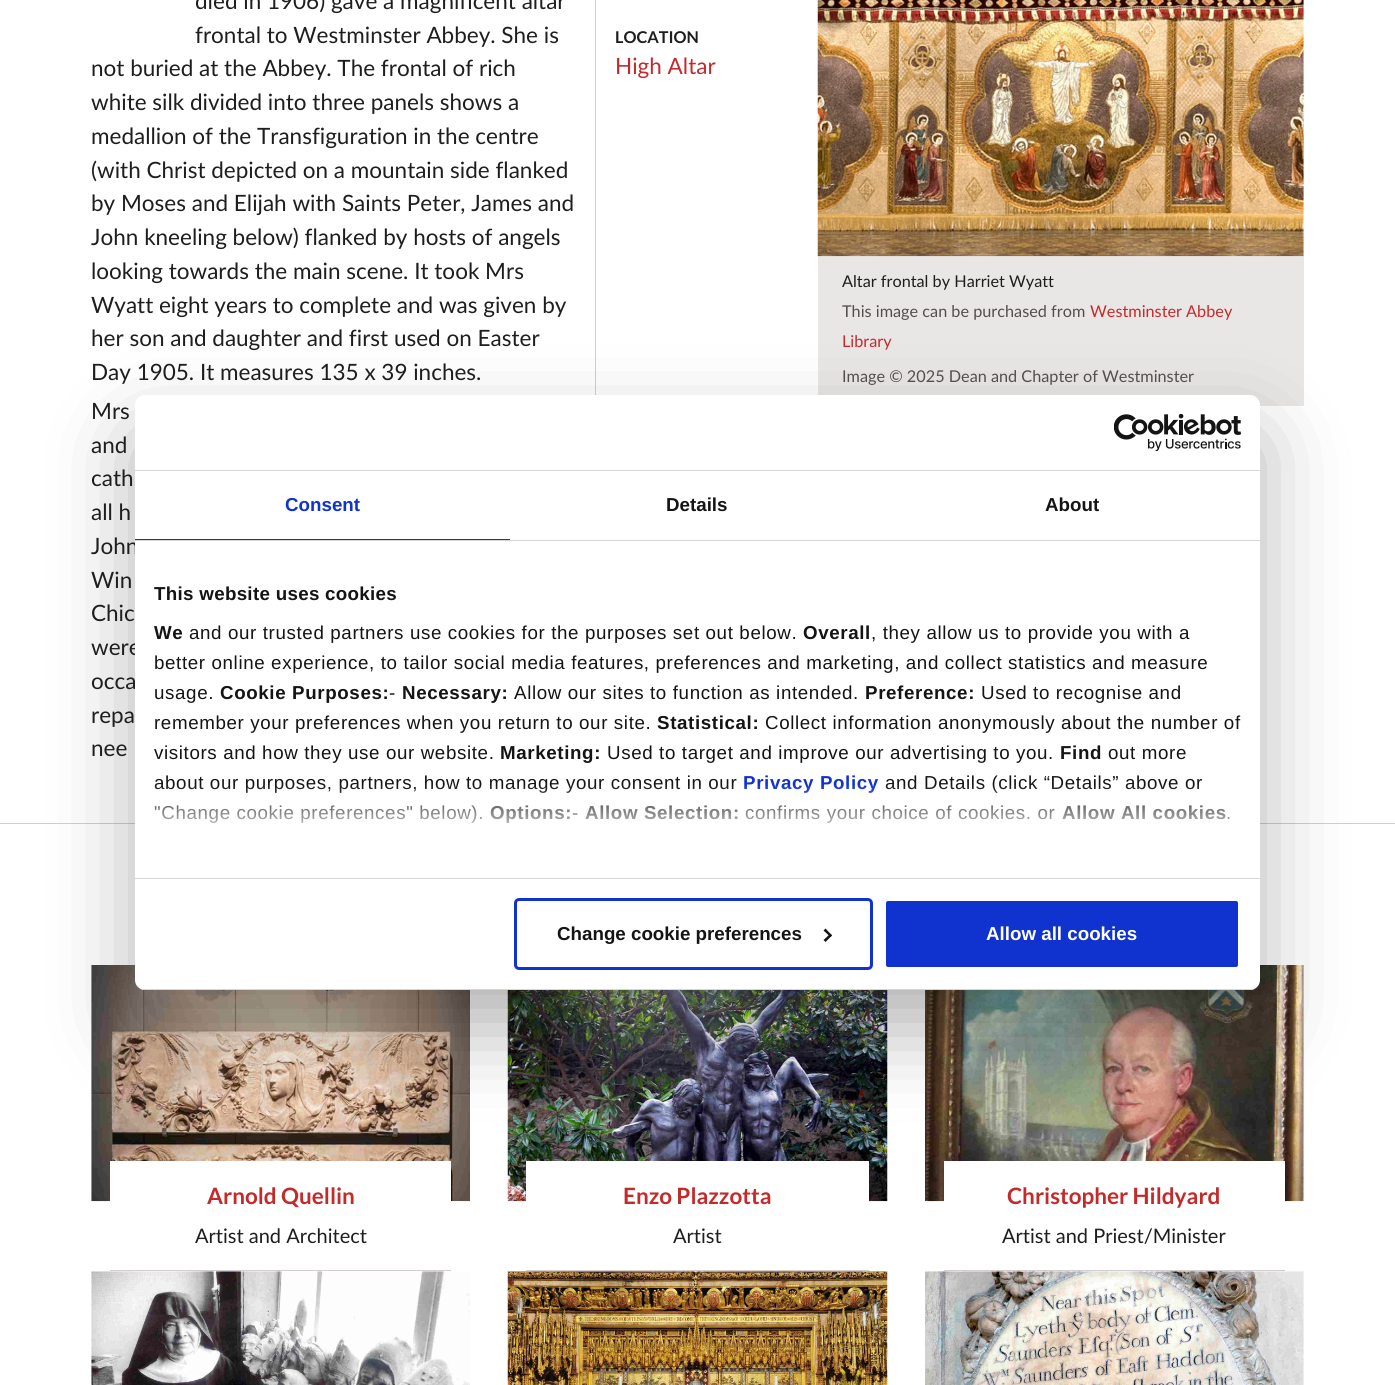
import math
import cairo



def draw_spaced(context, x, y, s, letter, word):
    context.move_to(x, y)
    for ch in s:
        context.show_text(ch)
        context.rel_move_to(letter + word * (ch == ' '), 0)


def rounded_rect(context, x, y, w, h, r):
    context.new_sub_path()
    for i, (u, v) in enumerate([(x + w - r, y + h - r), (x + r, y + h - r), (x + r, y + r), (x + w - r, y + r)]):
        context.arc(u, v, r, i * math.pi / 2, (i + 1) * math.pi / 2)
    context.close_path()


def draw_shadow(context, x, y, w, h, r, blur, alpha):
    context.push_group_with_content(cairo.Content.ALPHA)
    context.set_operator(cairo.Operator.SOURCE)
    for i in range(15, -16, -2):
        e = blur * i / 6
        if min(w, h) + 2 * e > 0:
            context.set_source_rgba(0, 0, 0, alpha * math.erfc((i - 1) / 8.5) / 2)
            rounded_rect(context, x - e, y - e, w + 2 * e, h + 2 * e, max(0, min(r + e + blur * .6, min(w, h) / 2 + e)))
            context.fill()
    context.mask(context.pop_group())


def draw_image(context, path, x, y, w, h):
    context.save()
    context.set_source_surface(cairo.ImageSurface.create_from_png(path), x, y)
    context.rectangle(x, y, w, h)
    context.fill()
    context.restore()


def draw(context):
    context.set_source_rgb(1, 1, 1)
    context.paint()
    context.set_source_rgb(211 / 255, 205 / 255, 205 / 255)
    context.rectangle(595, 0, 1, 395)
    context.fill()
    context.set_source_rgb(233 / 255, 230 / 255, 230 / 255)
    context.rectangle(818, 256, 486, 150)
    context.fill()
    draw_image(context, "images/1.png", 817, 0, 487, 257)
    context.set_source_rgb(211 / 255, 205 / 255, 205 / 255)
    context.rectangle(0, 823, 1395, 1)
    context.fill()
    draw_image(context, "images/2.png", 91, 965, 379, 237)
    context.set_source_rgb(1, 1, 1)
    context.rectangle(110, 1161, 341, 41)
    context.fill()
    context.set_source_rgb(211 / 255, 205 / 255, 205 / 255)
    context.rectangle(110, 1270, 341, 1)
    context.fill()
    draw_image(context, "images/3.png", 507, 990, 381, 212)
    context.set_source_rgb(1, 1, 1)
    context.rectangle(526, 1161, 343, 41)
    context.fill()
    context.set_source_rgb(211 / 255, 205 / 255, 205 / 255)
    context.rectangle(526, 1270, 343, 1)
    context.fill()
    draw_image(context, "images/4.png", 925, 965, 379, 237)
    context.set_source_rgb(1, 1, 1)
    context.rectangle(944, 1161, 341, 41)
    context.fill()
    context.set_source_rgb(211 / 255, 205 / 255, 205 / 255)
    context.rectangle(944, 1270, 341, 1)
    context.fill()
    draw_image(context, "images/5.png", 91, 1271, 379, 114)
    draw_image(context, "images/6.png", 507, 1271, 381, 114)
    draw_image(context, "images/7.png", 925, 1271, 379, 114)
    context.set_source_rgb(0, 0, 0)
    draw_shadow(context, 135, 435, 1125, 595, 10, 42.5, 0.3)
    context.select_font_face("Lato")
    context.set_font_size(22.5)
    context.set_source_rgb(30 / 255, 30 / 255, 30 / 255)
    context.move_to(195, 9)
    context.show_text("died in 1906) gave a magnificent altar")
    context.move_to(195, 43)
    context.show_text("frontal to Westminster Abbey. She is")
    context.move_to(91, 76)
    context.show_text("not buried at the Abbey. The frontal of rich")
    context.move_to(91, 110)
    context.show_text("white silk divided into three panels shows a")
    context.move_to(91, 144)
    context.show_text("medallion of the Transfiguration in the centre")
    context.move_to(91, 178)
    context.show_text("(with Christ depicted on a mountain side flanked")
    context.move_to(91, 211)
    context.show_text("by Moses and Elijah with Saints Peter, James and")
    context.move_to(91, 245)
    context.show_text("John kneeling below) flanked by hosts of angels")
    context.move_to(91, 279)
    context.show_text("looking towards the main scene. It took Mrs")
    context.move_to(91, 313)
    context.show_text("Wyatt eight years to complete and was given by")
    context.move_to(91, 346)
    context.show_text("her son and daughter and first used on Easter")
    context.move_to(91, 380)
    context.show_text("Day 1905. It measures 135 x 39 inches.")
    context.move_to(91, 419)
    context.show_text("Mrs")
    context.move_to(91, 453)
    context.show_text("and")
    context.move_to(91, 486)
    context.show_text("cath")
    context.move_to(91, 520)
    context.show_text("all h")
    context.move_to(91, 554)
    context.show_text("John")
    context.move_to(91, 588)
    context.show_text("Win")
    context.move_to(91, 621)
    context.show_text("Chic")
    context.move_to(91, 655)
    context.show_text("were")
    context.move_to(91, 689)
    context.show_text("occa")
    context.move_to(91, 723)
    context.show_text("repa")
    context.move_to(91, 756)
    context.show_text("nee")
    context.select_font_face("Lato", cairo.FontSlant.NORMAL, cairo.FontWeight.BOLD)
    context.set_font_size(16.25)
    context.move_to(615, 43)
    context.show_text("LOCATION")
    context.select_font_face("Lato")
    context.set_font_size(22.5)
    context.set_source_rgb(196 / 255, 42 / 255, 42 / 255)
    context.move_to(615, 74)
    context.show_text("High Altar")
    context.set_font_size(16.25)
    context.set_source_rgb(30 / 255, 30 / 255, 30 / 255)
    context.move_to(842, 287)
    context.show_text("Altar frontal by Harriet Wyatt")
    context.set_source_rgb(84 / 255, 78 / 255, 78 / 255)
    context.move_to(842, 317)
    context.show_text("This image can be purchased from")
    context.set_source_rgb(196 / 255, 42 / 255, 42 / 255)
    context.move_to(1090, 317)
    context.show_text("Westminster Abbey")
    context.move_to(842, 347)
    context.show_text("Library")
    context.set_source_rgb(84 / 255, 78 / 255, 78 / 255)
    context.move_to(842, 382)
    context.show_text("Image © 2025 Dean and Chapter of Westminster")
    context.select_font_face("Lato", cairo.FontSlant.NORMAL, cairo.FontWeight.BOLD)
    context.set_font_size(22.5)
    context.set_source_rgb(196 / 255, 42 / 255, 42 / 255)
    context.move_to(207, 1204)
    context.show_text("Arnold Quellin")
    context.select_font_face("Lato")
    context.set_font_size(20)
    context.set_source_rgb(30 / 255, 30 / 255, 30 / 255)
    context.move_to(195, 1243)
    context.show_text("Artist and Architect")
    context.select_font_face("Lato", cairo.FontSlant.NORMAL, cairo.FontWeight.BOLD)
    context.set_font_size(22.5)
    context.set_source_rgb(196 / 255, 42 / 255, 42 / 255)
    context.move_to(623, 1204)
    context.show_text("Enzo Plazzotta")
    context.select_font_face("Lato")
    context.set_font_size(20)
    context.set_source_rgb(30 / 255, 30 / 255, 30 / 255)
    context.move_to(673, 1243)
    context.show_text("Artist")
    context.select_font_face("Lato", cairo.FontSlant.NORMAL, cairo.FontWeight.BOLD)
    context.set_font_size(22.5)
    context.set_source_rgb(196 / 255, 42 / 255, 42 / 255)
    context.move_to(1007, 1204)
    context.show_text("Christopher Hildyard")
    context.select_font_face("Lato")
    context.set_font_size(20)
    context.set_source_rgb(30 / 255, 30 / 255, 30 / 255)
    context.move_to(1002, 1243)
    context.show_text("Artist and Priest/Minister")
    context.set_source_rgb(1, 1, 1)
    rounded_rect(context, 135, 395, 1125, 595, 10)
    context.fill()
    context.set_source_rgb(214 / 255, 214 / 255, 214 / 255)
    context.rectangle(135, 470, 1125, 1)
    context.fill()
    draw_image(context, "images/8.png", 1114, 414, 127, 37)
    context.rectangle(135, 540, 1125, 1)
    context.fill()
    context.set_source_rgb(16 / 255, 50 / 255, 207 / 255)
    context.rectangle(135, 539, 375, 1)
    context.fill()
    context.select_font_face("Liberation Sans", cairo.FontSlant.NORMAL, cairo.FontWeight.BOLD)
    context.set_font_size(18.75)
    context.move_to(285, 511)
    context.show_text("Consent")
    context.set_source_rgb(20 / 255, 20 / 255, 20 / 255)
    context.move_to(666, 511)
    context.show_text("Details")
    context.move_to(1045, 511)
    context.show_text("About")
    context.set_source_rgb(214 / 255, 214 / 255, 214 / 255)
    context.rectangle(135, 878, 1125, 1)
    context.fill()
    context.set_source_rgb(20 / 255, 20 / 255, 20 / 255)
    draw_spaced(context, 154, 600, "This website uses cookies", 0.3, 0)
    draw_spaced(context, 154, 639, "We", 0.62, 0)
    context.select_font_face("Liberation Sans")
    draw_spaced(context, 189, 639, "and our trusted partners use cookies for the purposes set out below.", 0.62, 0)
    context.select_font_face("Liberation Sans", cairo.FontSlant.NORMAL, cairo.FontWeight.BOLD)
    draw_spaced(context, 803, 639, "Overall", 0.62, 0)
    context.select_font_face("Liberation Sans")
    draw_spaced(context, 871, 639, ", they allow us to provide you with a", 0.62, 0)
    draw_spaced(context, 154, 669, "better online experience, to tailor social media features, preferences and marketing, and collect statistics and measure", 0.62, 0)
    draw_spaced(context, 154, 699, "usage.", 0.62, 0)
    context.select_font_face("Liberation Sans", cairo.FontSlant.NORMAL, cairo.FontWeight.BOLD)
    draw_spaced(context, 220, 699, "Cookie Purposes:", 0.62, 0)
    context.select_font_face("Liberation Sans")
    draw_spaced(context, 389, 699, "-", 0.62, 0)
    context.select_font_face("Liberation Sans", cairo.FontSlant.NORMAL, cairo.FontWeight.BOLD)
    draw_spaced(context, 402, 699, "Necessary:", 0.62, 0)
    context.select_font_face("Liberation Sans")
    draw_spaced(context, 514, 699, "Allow our sites to function as intended.", 0.62, 0)
    context.select_font_face("Liberation Sans", cairo.FontSlant.NORMAL, cairo.FontWeight.BOLD)
    draw_spaced(context, 865, 699, "Preference:", 0.62, 0)
    context.select_font_face("Liberation Sans")
    draw_spaced(context, 981, 699, "Used to recognise and", 0.62, 0)
    draw_spaced(context, 154, 729, "remember your preferences when you return to our site.", 0.62, 0)
    context.select_font_face("Liberation Sans", cairo.FontSlant.NORMAL, cairo.FontWeight.BOLD)
    draw_spaced(context, 657, 729, "Statistical:", 0.62, 0)
    context.select_font_face("Liberation Sans")
    draw_spaced(context, 765, 729, "Collect information anonymously about the number of", 0.62, 0)
    draw_spaced(context, 154, 759, "visitors and how they use our website.", 0.62, 0)
    context.select_font_face("Liberation Sans", cairo.FontSlant.NORMAL, cairo.FontWeight.BOLD)
    draw_spaced(context, 500, 759, "Marketing:", 0.62, 0)
    context.select_font_face("Liberation Sans")
    draw_spaced(context, 607, 759, "Used to target and improve our advertising to you.", 0.62, 0)
    context.select_font_face("Liberation Sans", cairo.FontSlant.NORMAL, cairo.FontWeight.BOLD)
    draw_spaced(context, 1060, 759, "Find", 0.62, 0)
    context.select_font_face("Liberation Sans")
    draw_spaced(context, 1108, 759, "out more", 0.62, 0)
    draw_spaced(context, 154, 789, "about our purposes, partners, how to manage your consent in our", 0.62, 0)
    context.select_font_face("Liberation Sans", cairo.FontSlant.NORMAL, cairo.FontWeight.BOLD)
    context.set_source_rgb(16 / 255, 50 / 255, 207 / 255)
    draw_spaced(context, 743, 789, "Privacy Policy", 0.62, 0)
    context.select_font_face("Liberation Sans")
    context.set_source_rgb(20 / 255, 20 / 255, 20 / 255)
    draw_spaced(context, 885, 789, "and Details (click “Details” above or", 0.62, 0)
    draw_spaced(context, 154, 819, "\"Change cookie preferences\" below).", 0.62, 0)
    context.select_font_face("Liberation Sans", cairo.FontSlant.NORMAL, cairo.FontWeight.BOLD)
    draw_spaced(context, 490, 819, "Options:", 0.62, 0)
    context.select_font_face("Liberation Sans")
    draw_spaced(context, 572, 819, "-", 0.62, 0)
    context.select_font_face("Liberation Sans", cairo.FontSlant.NORMAL, cairo.FontWeight.BOLD)
    draw_spaced(context, 585, 819, "Allow Selection:", 0.62, 0)
    context.select_font_face("Liberation Sans")
    draw_spaced(context, 745, 819, "confirms your choice of cookies. or", 0.62, 0)
    context.select_font_face("Liberation Sans", cairo.FontSlant.NORMAL, cairo.FontWeight.BOLD)
    draw_spaced(context, 1062, 819, "Allow All cookies", 0.62, 0)
    context.select_font_face("Liberation Sans")
    draw_spaced(context, 1226, 819, ".", 0.62, 0)
    gradient = cairo.LinearGradient(689, 878, 689, 784)
    gradient.add_color_stop_rgba(0, 1, 1, 1, 1)
    gradient.add_color_stop_rgba(0.5, 1, 1, 1, 0.8)
    gradient.add_color_stop_rgba(1, 1, 1, 1, 0)
    context.set_source(gradient)
    context.rectangle(154, 785, 1076, 38)
    context.fill()
    context.save()
    rounded_rect(context, 135, 395, 1125, 595, 10)
    context.clip()
    context.set_source_rgb(214 / 255, 214 / 255, 214 / 255)
    context.rectangle(135, 989, 1125, 1)
    context.fill()
    context.restore()
    rounded_rect(context, 515.5, 899.5, 356, 69, 3.5)
    context.set_source_rgb(16 / 255, 50 / 255, 207 / 255)
    context.set_line_width(3)
    context.stroke()
    context.select_font_face("Liberation Sans", cairo.FontSlant.NORMAL, cairo.FontWeight.BOLD)
    context.set_source_rgb(20 / 255, 20 / 255, 20 / 255)
    context.move_to(557, 940)
    context.show_text("Change cookie preferences")
    context.new_path()
    context.move_to(825.5, 928.5)
    context.line_to(832, 935.5)
    context.line_to(830.5, 937)
    context.line_to(823.5, 930.5)
    context.close_path()
    context.fill()
    context.new_path()
    context.move_to(830.5, 933.5)
    context.line_to(832, 935.5)
    context.line_to(825.5, 942)
    context.line_to(823.5, 940)
    context.close_path()
    context.fill()
    context.set_source_rgb(16 / 255, 50 / 255, 207 / 255)
    rounded_rect(context, 884.5, 899.5, 355, 69, 3.5)
    context.fill_preserve()
    context.set_source_rgb(1, 1, 1)
    context.stroke()
    context.move_to(986, 940)
    context.show_text("Allow all cookies")


surface = cairo.ImageSurface(cairo.Format.RGB24, 1395, 1385)
context = cairo.Context(surface)
options = cairo.FontOptions()
options.set_hint_metrics(cairo.HintMetrics.OFF)
options.set_hint_style(cairo.HintStyle.NONE)
context.set_font_options(options)
context.set_miter_limit(4)
draw(context)
surface.write_to_png("out.png")
